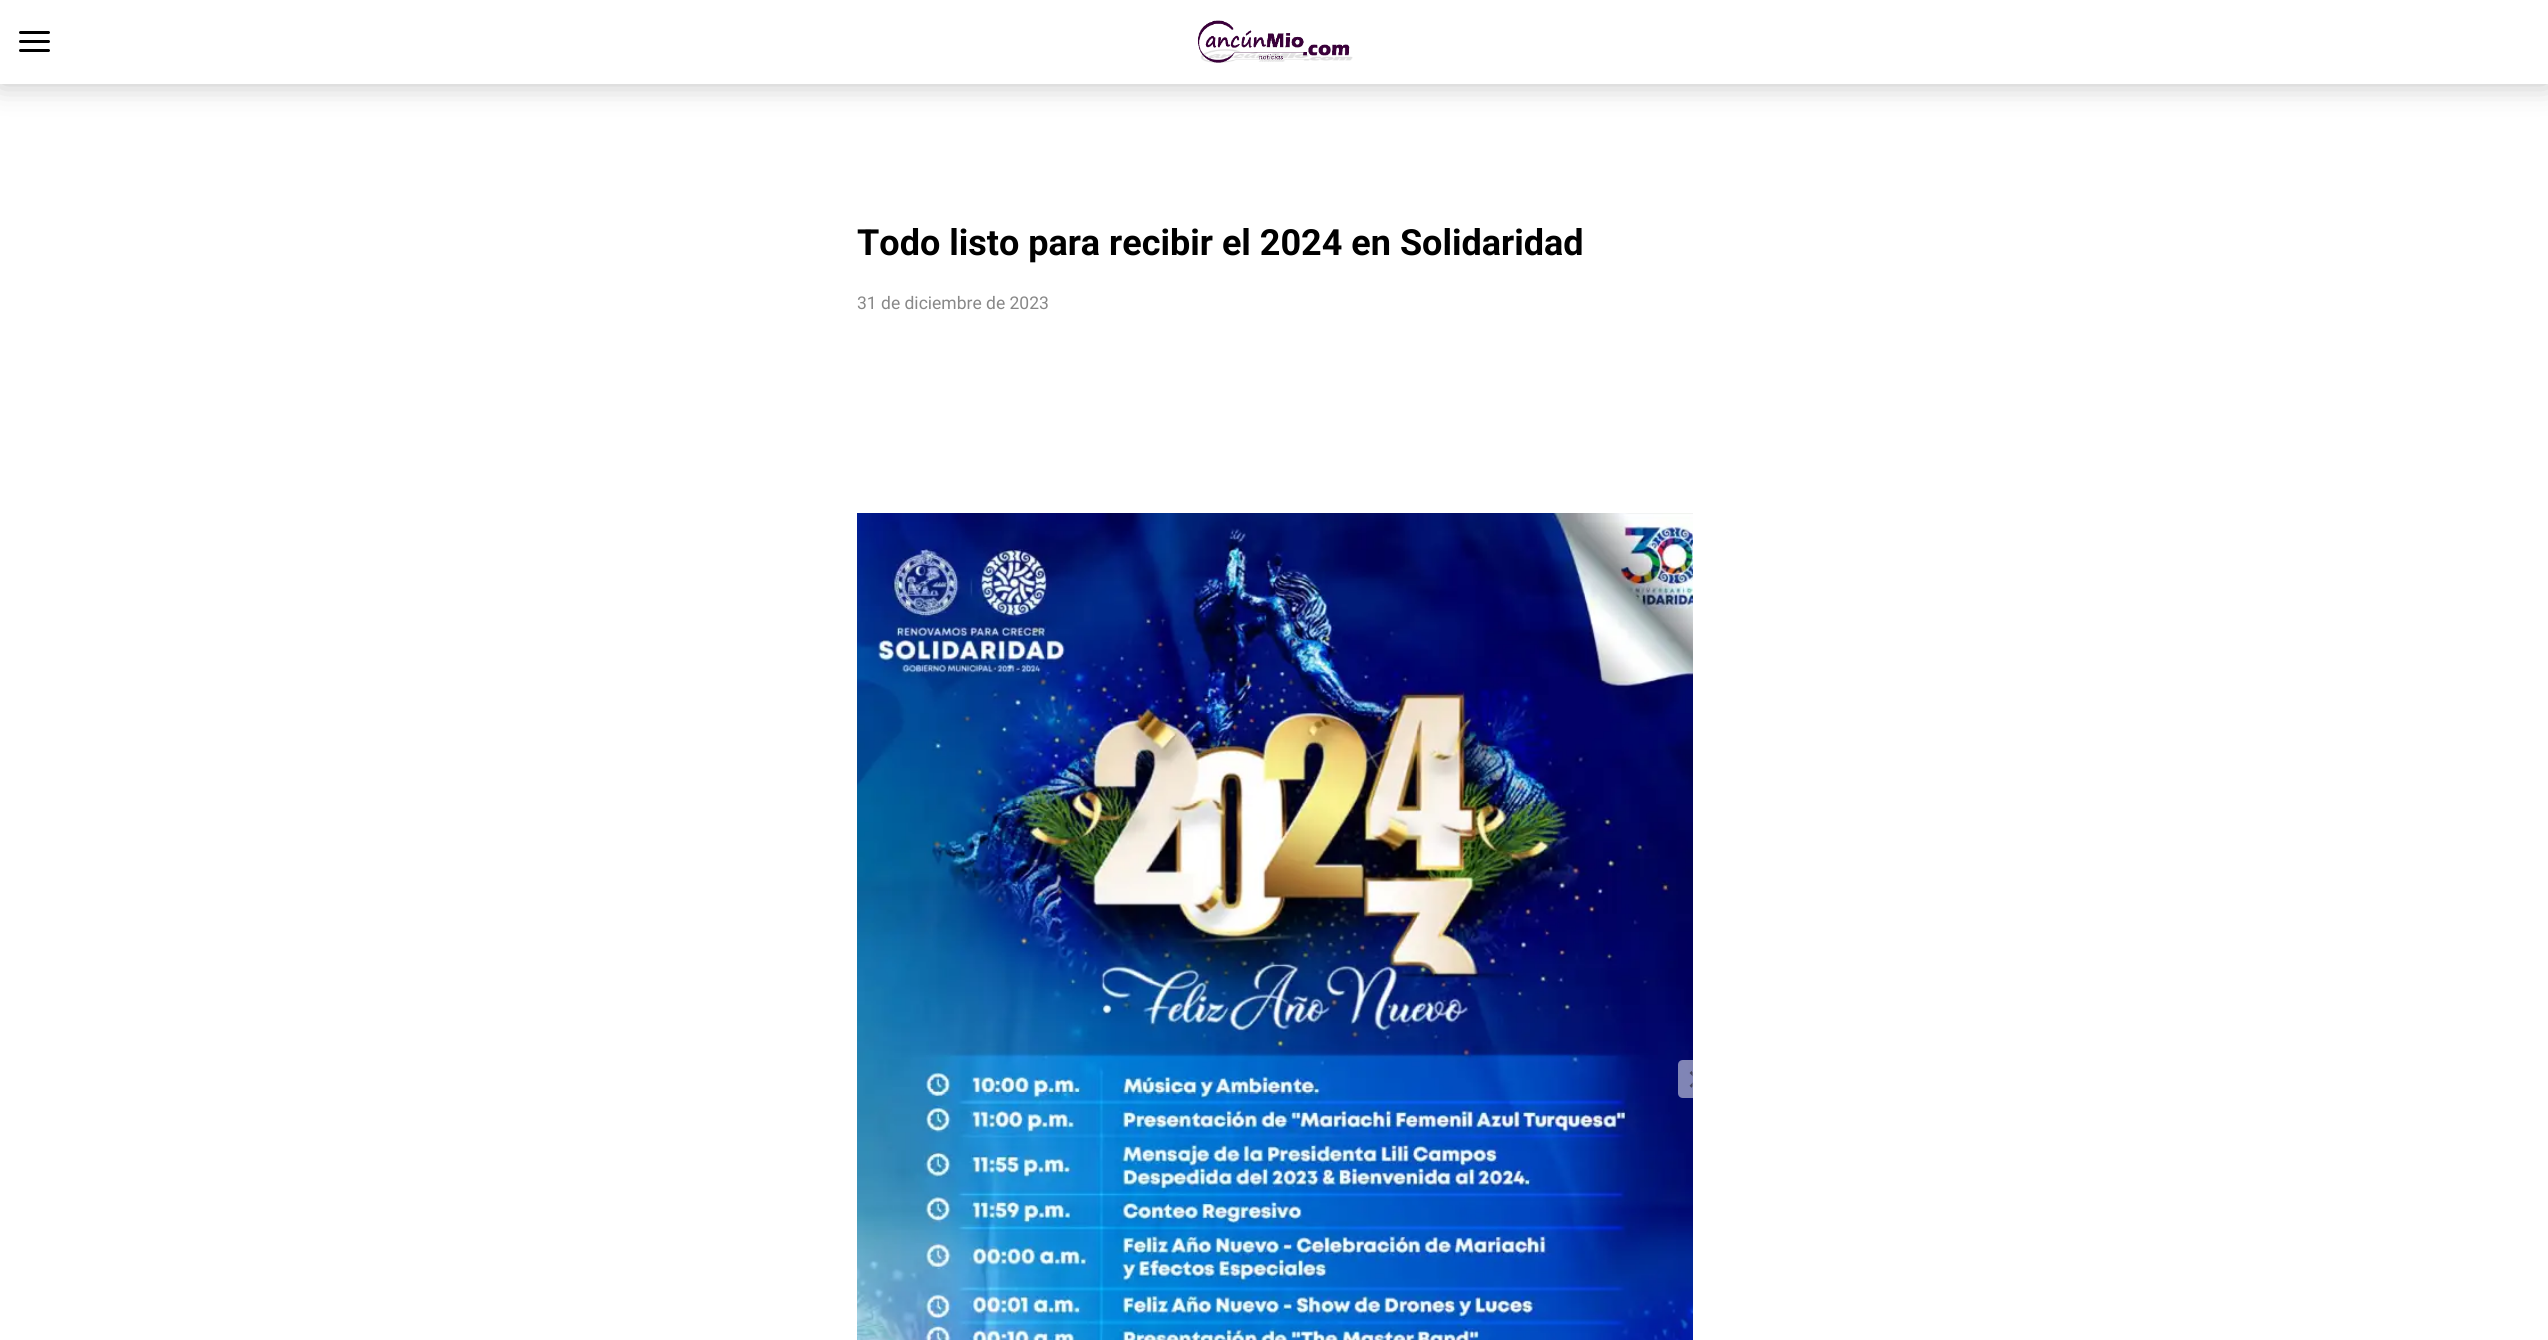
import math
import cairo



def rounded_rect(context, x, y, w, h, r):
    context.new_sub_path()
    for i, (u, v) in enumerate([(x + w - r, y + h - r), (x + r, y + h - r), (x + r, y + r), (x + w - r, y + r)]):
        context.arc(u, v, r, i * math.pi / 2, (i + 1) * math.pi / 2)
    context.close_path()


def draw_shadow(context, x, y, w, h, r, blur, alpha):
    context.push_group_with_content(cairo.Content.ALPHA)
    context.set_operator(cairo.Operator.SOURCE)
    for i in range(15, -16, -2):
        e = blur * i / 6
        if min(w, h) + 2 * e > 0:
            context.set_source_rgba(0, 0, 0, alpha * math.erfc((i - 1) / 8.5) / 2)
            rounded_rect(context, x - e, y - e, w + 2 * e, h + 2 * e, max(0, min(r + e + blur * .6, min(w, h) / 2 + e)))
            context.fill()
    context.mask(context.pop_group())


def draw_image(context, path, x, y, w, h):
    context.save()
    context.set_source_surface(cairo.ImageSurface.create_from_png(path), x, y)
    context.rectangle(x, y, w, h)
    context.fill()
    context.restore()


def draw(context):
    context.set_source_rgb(1, 1, 1)
    context.paint()
    context.set_source_rgb(0, 0, 0)
    draw_shadow(context, 0, 0, 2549, 84, 0, 15, 0.25)
    context.set_source_rgb(1, 1, 1)
    context.rectangle(0, 0, 2548, 84)
    context.fill()
    context.set_source_rgb(0, 0, 0)
    rounded_rect(context, 19, 31, 31, 3, 1.5)
    context.fill()
    rounded_rect(context, 19, 40, 31, 3, 1.5)
    context.fill()
    rounded_rect(context, 19, 49, 31, 3, 1.5)
    context.fill()
    draw_image(context, "images/1.png", 1197, 20, 156, 43)
    draw_image(context, "images/2.png", 857, 513, 836, 827)
    context.set_source_rgba(1, 1, 1, 0.5)
    context.new_path()
    context.move_to(1683, 1060)
    context.line_to(1693, 1060)
    context.line_to(1693, 1098)
    context.line_to(1683, 1098)
    context.curve_to(1680, 1098, 1678, 1096, 1678, 1093)
    context.line_to(1678, 1065)
    context.curve_to(1678, 1062, 1680, 1060, 1683, 1060)
    context.close_path()
    context.fill()
    draw_image(context, "images/3.png", 1689, 1071, 4, 17)
    context.select_font_face("Roboto", cairo.FontSlant.NORMAL, cairo.FontWeight.BOLD)
    context.set_font_size(36)
    context.set_source_rgb(0, 0, 0)
    context.move_to(857, 255)
    context.show_text("Todo listo para recibir el 2024 en Solidaridad")
    context.select_font_face("Roboto")
    context.set_font_size(17.5)
    context.set_source_rgb(136 / 255, 136 / 255, 136 / 255)
    context.move_to(857, 309)
    context.show_text("31 de diciembre de 2023")


surface = cairo.ImageSurface(cairo.Format.RGB24, 2548, 1340)
context = cairo.Context(surface)
options = cairo.FontOptions()
options.set_hint_metrics(cairo.HintMetrics.OFF)
options.set_hint_style(cairo.HintStyle.NONE)
context.set_font_options(options)
context.set_miter_limit(4)
draw(context)
surface.write_to_png("out.png")
